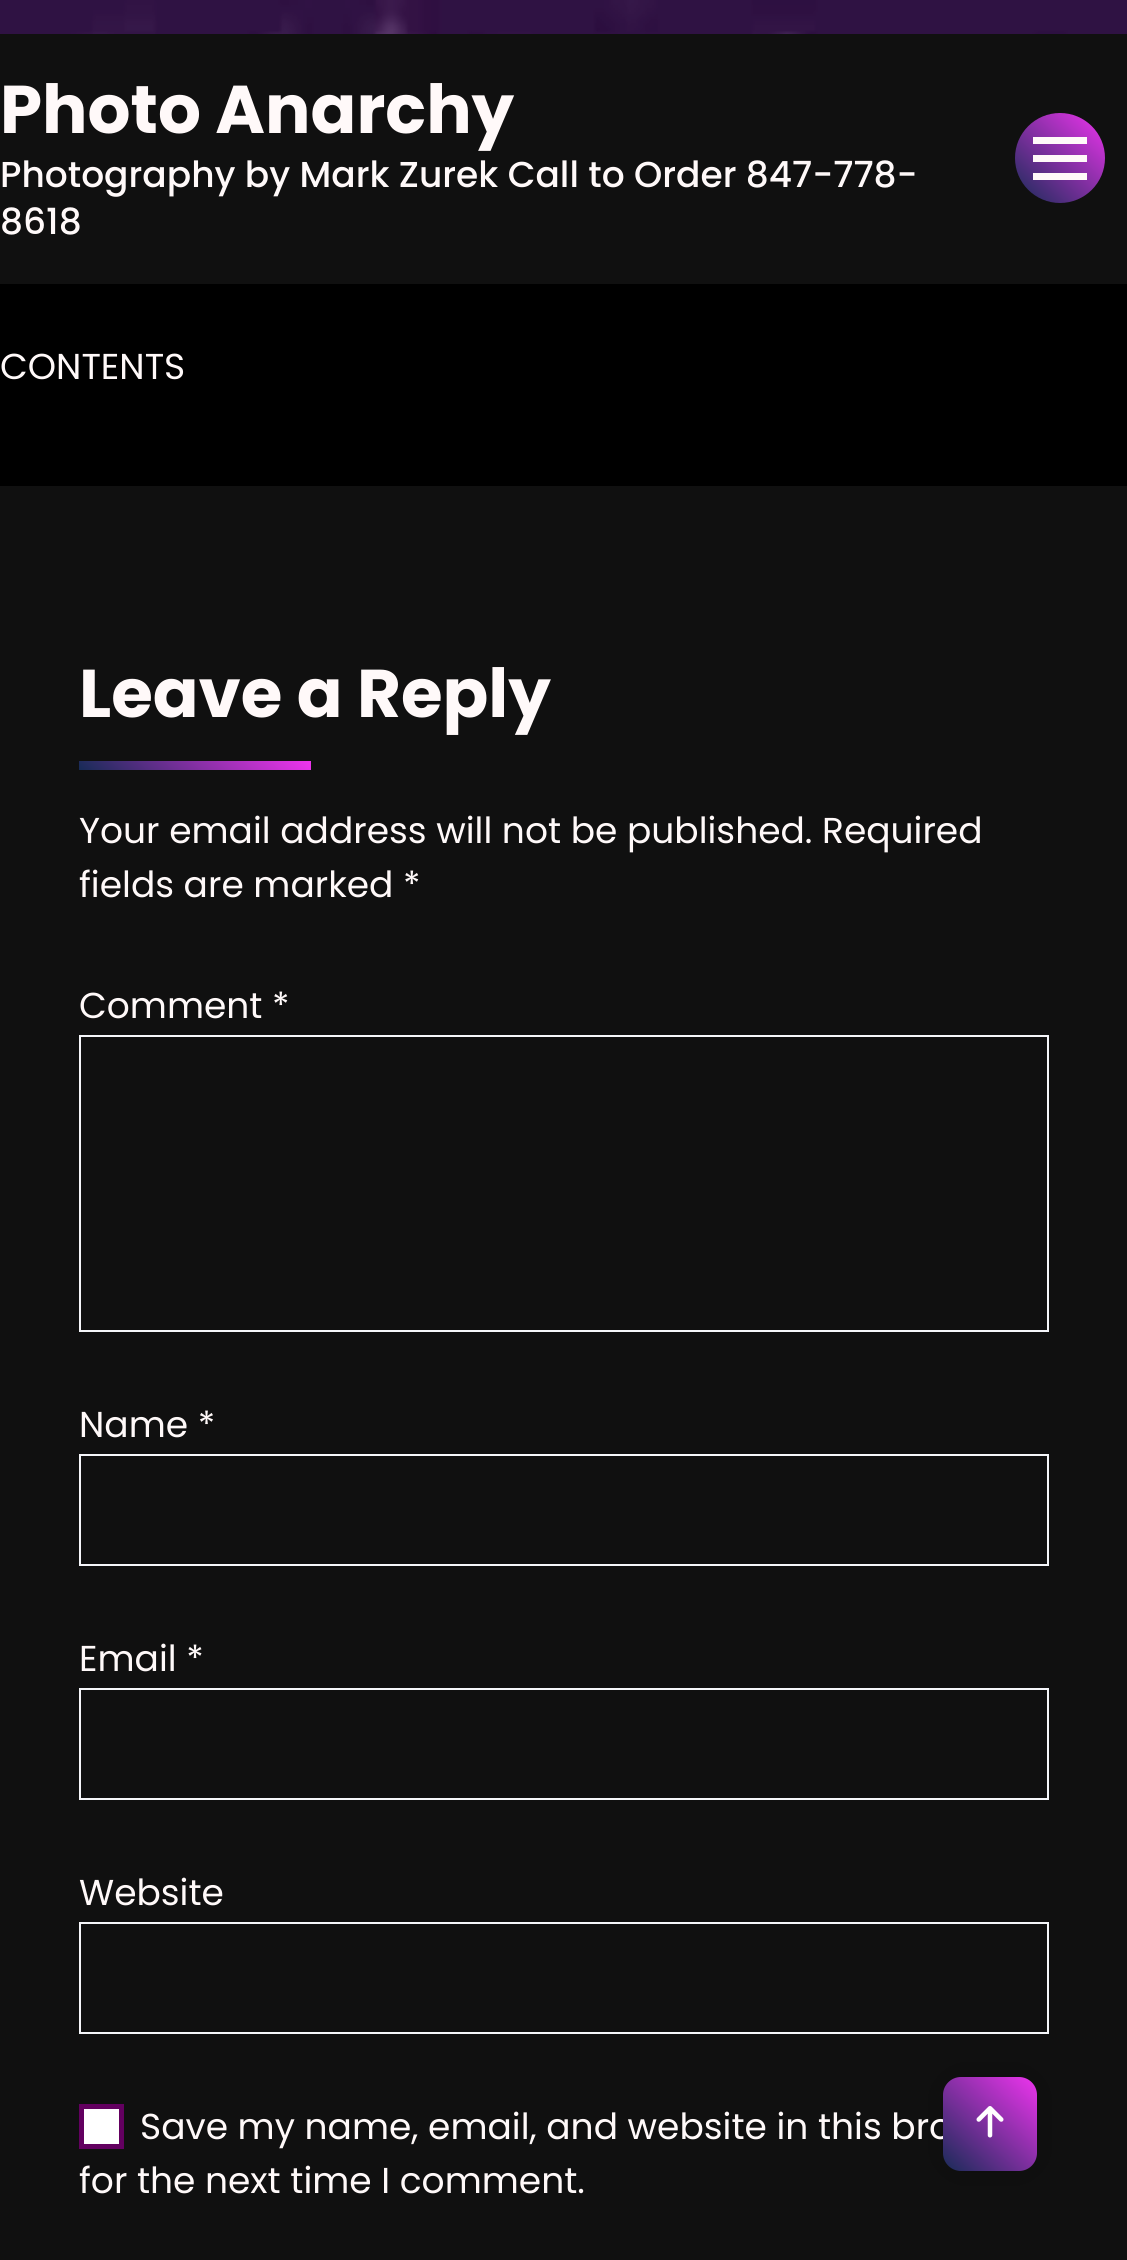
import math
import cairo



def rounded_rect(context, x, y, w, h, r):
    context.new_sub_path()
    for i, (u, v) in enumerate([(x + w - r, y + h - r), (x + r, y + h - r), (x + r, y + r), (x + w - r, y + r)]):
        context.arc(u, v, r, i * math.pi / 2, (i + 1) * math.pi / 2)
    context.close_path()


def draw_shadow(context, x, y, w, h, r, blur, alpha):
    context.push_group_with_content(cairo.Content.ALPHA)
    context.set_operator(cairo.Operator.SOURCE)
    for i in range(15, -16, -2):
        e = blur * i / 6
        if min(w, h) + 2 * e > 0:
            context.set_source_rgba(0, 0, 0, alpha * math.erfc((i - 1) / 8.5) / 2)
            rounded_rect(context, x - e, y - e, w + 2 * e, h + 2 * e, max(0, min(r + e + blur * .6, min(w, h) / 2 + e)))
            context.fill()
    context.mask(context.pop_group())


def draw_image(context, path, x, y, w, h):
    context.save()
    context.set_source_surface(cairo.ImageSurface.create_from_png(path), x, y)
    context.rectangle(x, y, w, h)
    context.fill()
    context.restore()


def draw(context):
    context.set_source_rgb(0, 0, 0)
    context.paint()
    draw_image(context, "images/1.png", 0, 0, 1127, 34)
    context.set_source_rgba(130 / 255, 36 / 255, 227 / 255, 0.27)
    context.rectangle(0, 0, 1127, 34)
    context.fill()
    context.set_source_rgb(16 / 255, 16 / 255, 16 / 255)
    context.rectangle(0, 34, 1127, 250)
    context.fill()
    gradient = cairo.LinearGradient(1103, 111, 1016, 204)
    gradient.add_color_stop_rgba(0, 239 / 255, 52 / 255, 239 / 255, 1)
    gradient.add_color_stop_rgba(1, 23 / 255, 43 / 255, 86 / 255, 1)
    context.set_source(gradient)
    context.arc(1060, 158, 45, 0, 2 * math.pi)
    context.fill()
    context.set_source_rgb(1, 249 / 255, 249 / 255)
    context.rectangle(1033, 137, 54, 7)
    context.fill()
    context.rectangle(1033, 155, 54, 7)
    context.fill()
    context.rectangle(1033, 173, 54, 7)
    context.fill()
    context.set_source_rgb(16 / 255, 16 / 255, 16 / 255)
    context.rectangle(0, 486, 1127, 1774)
    context.fill()
    gradient = cairo.LinearGradient(251, 705, 138, 825)
    gradient.add_color_stop_rgba(0, 239 / 255, 52 / 255, 239 / 255, 1)
    gradient.add_color_stop_rgba(1, 23 / 255, 43 / 255, 86 / 255, 1)
    context.set_source(gradient)
    context.rectangle(79, 761, 232, 9)
    context.fill()
    context.rectangle(80, 1036, 968, 295)
    context.set_source_rgb(245 / 255, 246 / 255, 250 / 255)
    context.stroke()
    context.rectangle(80, 1455, 968, 110)
    context.stroke()
    context.rectangle(80, 1689, 968, 110)
    context.stroke()
    context.rectangle(80, 1923, 968, 110)
    context.stroke()
    context.set_source_rgb(1, 1, 1)
    context.rectangle(81.5, 2106.5, 40, 40)
    context.fill_preserve()
    context.set_source_rgb(99 / 255, 0, 96 / 255)
    context.set_line_width(5)
    context.stroke()
    context.set_source_rgb(0, 0, 0)
    draw_shadow(context, 943, 2077, 94, 94, 18, 13.5, 0.2)
    context.select_font_face("Poppins", cairo.FontSlant.NORMAL, cairo.FontWeight.BOLD)
    context.set_font_size(67.5)
    context.set_source_rgb(1, 249 / 255, 249 / 255)
    context.move_to(0, 133)
    context.show_text("Photo Anarchy")
    context.select_font_face("Poppins Medium")
    context.set_font_size(36)
    context.move_to(0, 187)
    context.show_text("Photography by Mark Zurek Call to Order 847-778-")
    context.move_to(0, 234)
    context.show_text("8618")
    context.select_font_face("Poppins")
    context.move_to(0, 379)
    context.show_text("CONTENTS")
    context.select_font_face("Poppins", cairo.FontSlant.NORMAL, cairo.FontWeight.BOLD)
    context.set_font_size(67.5)
    context.move_to(79, 717)
    context.show_text("Leave a Reply")
    context.select_font_face("Poppins")
    context.set_font_size(36)
    context.move_to(79, 843)
    context.show_text("Your email address will not be published. Required")
    context.move_to(79, 897)
    context.show_text("fields are marked *")
    context.move_to(79, 1018)
    context.show_text("Comment *")
    context.move_to(79, 1437)
    context.show_text("Name *")
    context.move_to(79, 1671)
    context.show_text("Email *")
    context.move_to(79, 1905)
    context.show_text("Website")
    context.move_to(140, 2139)
    context.show_text("Save my name, email, and website in this bro")
    context.move_to(79, 2193)
    context.show_text("for the next time I comment.")
    gradient = cairo.LinearGradient(1036, 2075, 944, 2173)
    gradient.add_color_stop_rgba(0, 239 / 255, 52 / 255, 239 / 255, 1)
    gradient.add_color_stop_rgba(1, 23 / 255, 43 / 255, 86 / 255, 1)
    context.set_source(gradient)
    rounded_rect(context, 943, 2077, 94, 94, 18)
    context.fill()
    draw_image(context, "images/2.png", 976, 2106, 28, 32)


surface = cairo.ImageSurface(cairo.Format.RGB24, 1127, 2260)
context = cairo.Context(surface)
options = cairo.FontOptions()
options.set_hint_metrics(cairo.HintMetrics.OFF)
options.set_hint_style(cairo.HintStyle.NONE)
context.set_font_options(options)
context.set_miter_limit(4)
draw(context)
surface.write_to_png("out.png")
